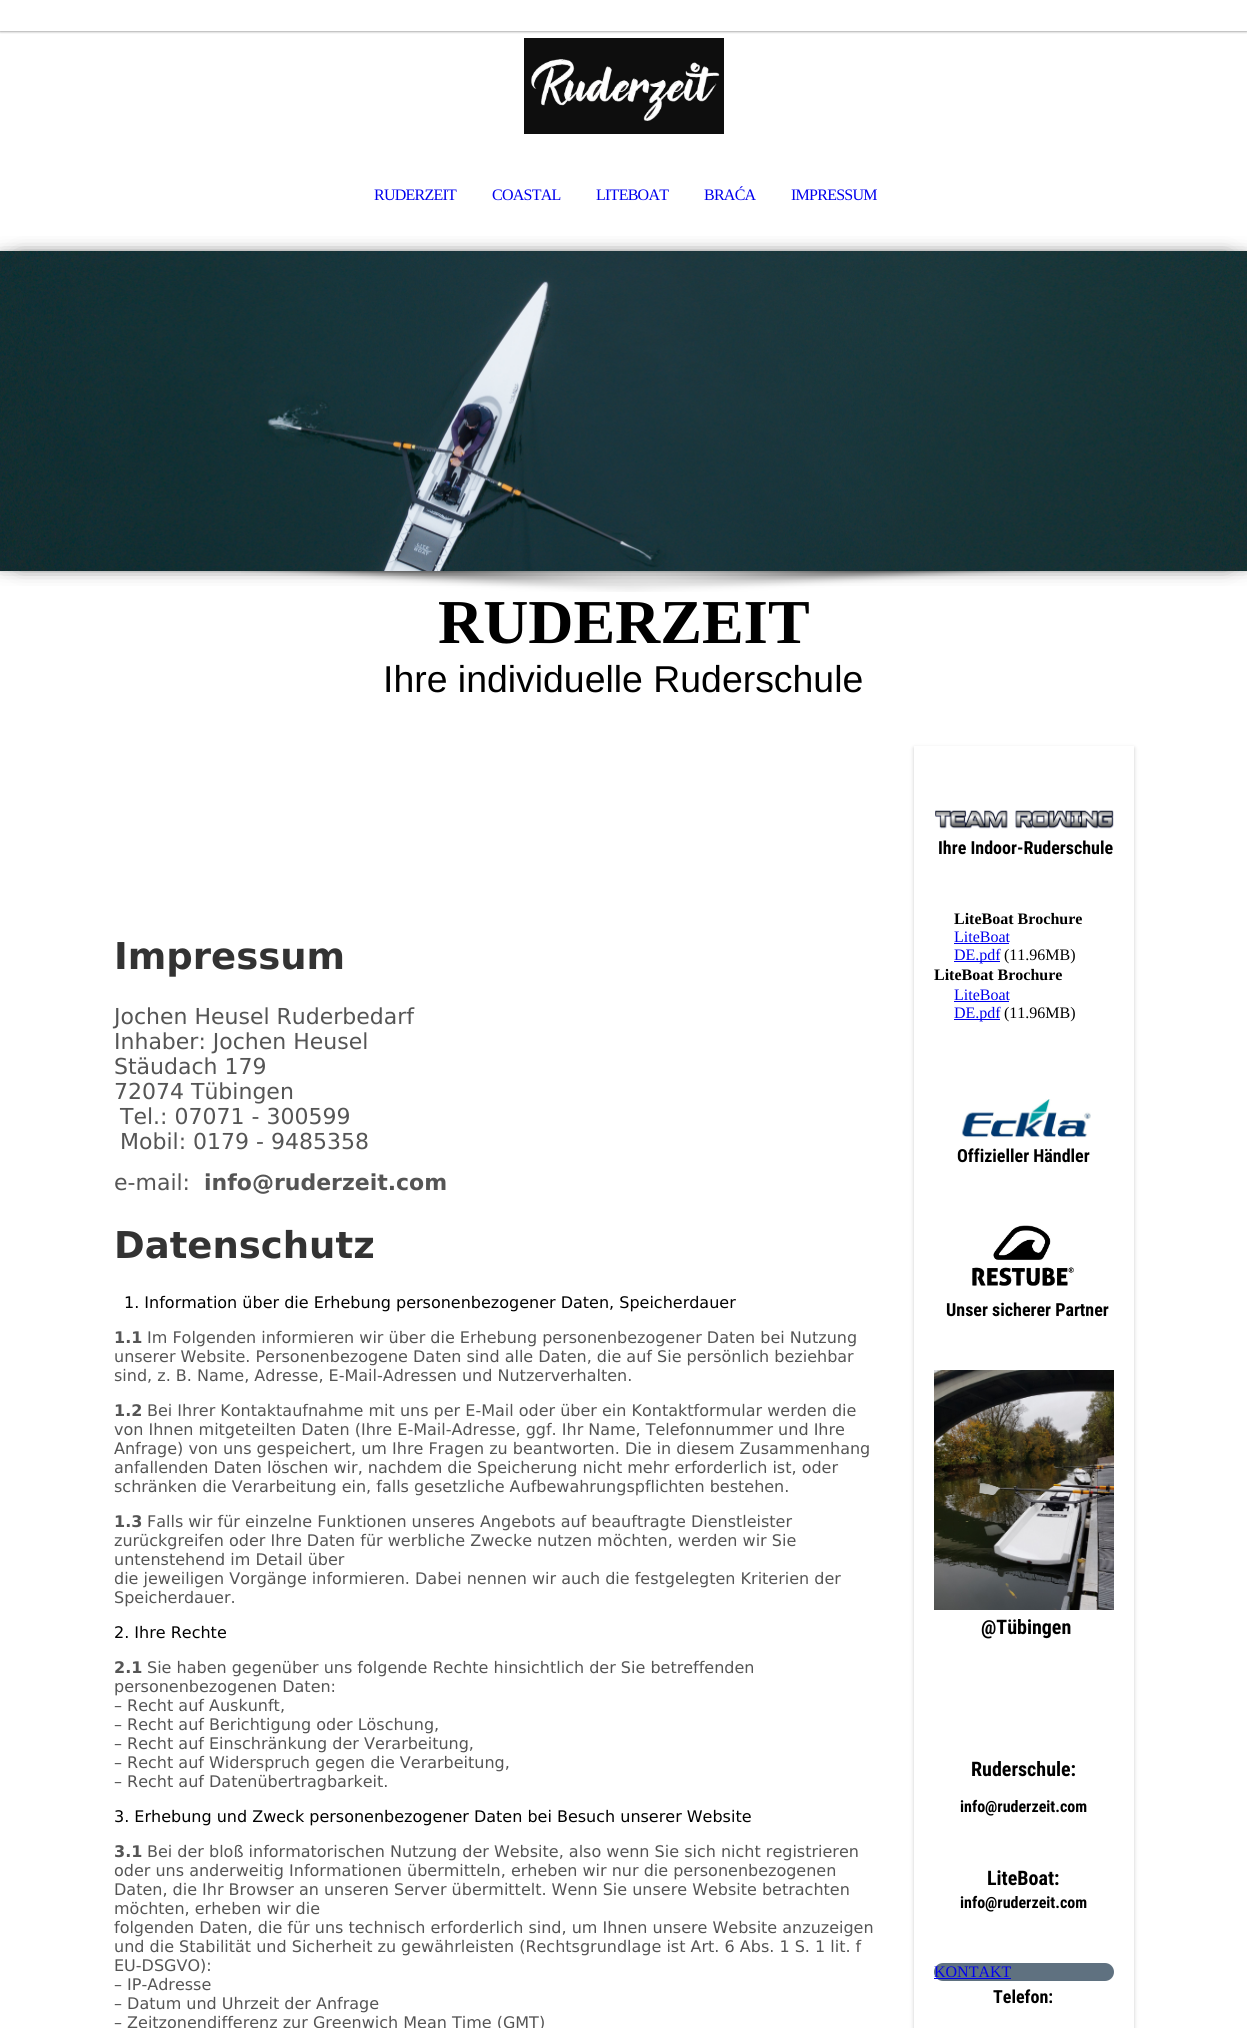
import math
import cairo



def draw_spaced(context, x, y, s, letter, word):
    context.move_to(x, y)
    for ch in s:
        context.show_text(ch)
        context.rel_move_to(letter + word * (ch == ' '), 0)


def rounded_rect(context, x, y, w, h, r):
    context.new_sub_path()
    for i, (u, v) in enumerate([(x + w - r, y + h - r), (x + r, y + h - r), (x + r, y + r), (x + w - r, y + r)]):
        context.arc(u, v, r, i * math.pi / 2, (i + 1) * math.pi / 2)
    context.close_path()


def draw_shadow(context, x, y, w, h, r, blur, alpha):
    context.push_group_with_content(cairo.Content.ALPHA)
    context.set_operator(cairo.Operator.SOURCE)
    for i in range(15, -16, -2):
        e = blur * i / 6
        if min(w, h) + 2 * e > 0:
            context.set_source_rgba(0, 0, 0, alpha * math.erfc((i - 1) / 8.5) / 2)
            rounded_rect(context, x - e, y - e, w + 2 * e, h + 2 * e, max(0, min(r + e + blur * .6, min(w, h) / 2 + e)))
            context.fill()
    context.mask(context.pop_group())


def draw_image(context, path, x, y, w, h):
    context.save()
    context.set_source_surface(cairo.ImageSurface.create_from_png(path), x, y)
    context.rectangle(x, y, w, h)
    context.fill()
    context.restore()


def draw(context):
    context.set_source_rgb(1, 1, 1)
    context.paint()
    context.save()
    context.rectangle(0, 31, 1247, 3)
    context.clip()
    context.set_source_rgb(102 / 255, 102 / 255, 102 / 255)
    draw_shadow(context, 0, 0, 1247, 31, 0, 1.5, 1)
    context.restore()
    draw_image(context, "images/1.png", 524, 38, 200, 96)
    draw_image(context, "images/3.png", 241, 571, 799, 21)
    context.set_source_rgb(0, 0, 0)
    draw_shadow(context, 0, 261, 1227, 300, 0, 10, 0.8)
    draw_shadow(context, 20, 261, 1227, 300, 0, 10, 0.8)
    draw_image(context, "images/2.png", 0, 251, 1247, 320)
    context.save()
    context.set_fill_rule(cairo.FillRule.EVEN_ODD)
    context.new_path()
    context.move_to(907, 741)
    context.line_to(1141, 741)
    context.line_to(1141, 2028)
    context.line_to(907, 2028)
    context.close_path()
    context.move_to(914, 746)
    context.line_to(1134, 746)
    context.line_to(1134, 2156)
    context.line_to(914, 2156)
    context.close_path()
    context.clip()
    context.set_source_rgb(204 / 255, 204 / 255, 204 / 255)
    draw_shadow(context, 914, 748, 220, 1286, 0, 2, 1)
    context.restore()
    draw_image(context, "images/4.png", 935, 810, 179, 19)
    context.set_source_rgb(0, 0, 238 / 255)
    context.rectangle(954, 943, 55, 1)
    context.fill()
    context.rectangle(954, 961, 46, 1)
    context.fill()
    context.rectangle(954, 1001, 55, 1)
    context.fill()
    context.rectangle(954, 1019, 46, 1)
    context.fill()
    draw_image(context, "images/5.png", 961, 1099, 130, 39)
    draw_image(context, "images/6.png", 972, 1225, 102, 61)
    draw_image(context, "images/7.png", 934, 1370, 180, 240)
    context.set_source_rgb(95 / 255, 113 / 255, 128 / 255)
    rounded_rect(context, 934, 1963, 180, 18, 9)
    context.fill()
    context.set_source_rgb(0, 0, 238 / 255)
    context.rectangle(934, 1978, 77, 1)
    context.fill()
    context.select_font_face("Liberation Serif")
    context.set_font_size(16)
    draw_spaced(context, 374, 200, "RUDERZEIT", -0.75, 0)
    draw_spaced(context, 492, 200, "COASTAL", -0.75, 0)
    draw_spaced(context, 596, 200, "LITEBOAT", -0.75, 0)
    draw_spaced(context, 704, 200, "BRAĆA", -0.75, 0)
    draw_spaced(context, 791, 200, "IMPRESSUM", -0.75, 0)
    context.select_font_face("Liberation Serif", cairo.FontSlant.NORMAL, cairo.FontWeight.BOLD)
    context.set_font_size(62.5)
    context.set_source_rgb(0, 0, 0)
    context.move_to(438, 643)
    context.show_text("RUDERZEIT")
    context.select_font_face("Liberation Sans")
    context.set_font_size(37.4)
    context.move_to(383, 692)
    context.show_text("Ihre individuelle Ruderschule")
    context.select_font_face("DejaVu Sans", cairo.FontSlant.NORMAL, cairo.FontWeight.BOLD)
    context.set_font_size(37)
    context.set_source_rgb(51 / 255, 51 / 255, 51 / 255)
    context.move_to(114, 969)
    context.show_text("Impressum")
    context.select_font_face("DejaVu Sans")
    context.set_font_size(22)
    context.set_source_rgb(85 / 255, 85 / 255, 85 / 255)
    context.move_to(114, 1024)
    context.show_text("Jochen Heusel Ruderbedarf")
    context.move_to(114, 1049)
    context.show_text("Inhaber: Jochen Heusel")
    context.move_to(114, 1074)
    context.show_text("Stäudach 179")
    context.move_to(114, 1099)
    context.show_text("72074 Tübingen")
    context.move_to(120, 1124)
    context.show_text("Tel.: 07071 - 300599")
    context.move_to(120, 1149)
    context.show_text("Mobil: 0179 - 9485358")
    context.move_to(114, 1190)
    context.show_text("e-mail:")
    context.select_font_face("DejaVu Sans", cairo.FontSlant.NORMAL, cairo.FontWeight.BOLD)
    context.move_to(204, 1190)
    context.show_text("info@ruderzeit.com")
    context.set_font_size(37)
    context.set_source_rgb(51 / 255, 51 / 255, 51 / 255)
    context.move_to(114, 1258)
    context.show_text("Datenschutz")
    context.select_font_face("DejaVu Sans")
    context.set_font_size(16)
    context.set_source_rgb(0, 0, 0)
    context.move_to(124, 1308)
    context.show_text("1. Information über die Erhebung personenbezogener Daten, Speicherdauer")
    context.select_font_face("DejaVu Sans", cairo.FontSlant.NORMAL, cairo.FontWeight.BOLD)
    context.set_source_rgb(85 / 255, 85 / 255, 85 / 255)
    context.move_to(114, 1343)
    context.show_text("1.1")
    context.select_font_face("DejaVu Sans")
    context.move_to(147, 1343)
    context.show_text("Im Folgenden informieren wir über die Erhebung personenbezogener Daten bei Nutzung")
    context.move_to(114, 1362)
    context.show_text("unserer Website. Personenbezogene Daten sind alle Daten, die auf Sie persönlich beziehbar")
    context.move_to(114, 1381)
    context.show_text("sind, z. B. Name, Adresse, E-Mail-Adressen und Nutzerverhalten.")
    context.select_font_face("DejaVu Sans", cairo.FontSlant.NORMAL, cairo.FontWeight.BOLD)
    context.move_to(114, 1416)
    context.show_text("1.2")
    context.select_font_face("DejaVu Sans")
    context.move_to(147, 1416)
    context.show_text("Bei Ihrer Kontaktaufnahme mit uns per E-Mail oder über ein Kontaktformular werden die")
    context.move_to(114, 1435)
    context.show_text("von Ihnen mitgeteilten Daten (Ihre E-Mail-Adresse, ggf. Ihr Name, Telefonnummer und Ihre")
    context.move_to(114, 1454)
    context.show_text("Anfrage) von uns gespeichert, um Ihre Fragen zu beantworten. Die in diesem Zusammenhang")
    context.move_to(114, 1473)
    context.show_text("anfallenden Daten löschen wir, nachdem die Speicherung nicht mehr erforderlich ist, oder")
    context.move_to(114, 1492)
    context.show_text("schränken die Verarbeitung ein, falls gesetzliche Aufbewahrungspflichten bestehen.")
    context.select_font_face("DejaVu Sans", cairo.FontSlant.NORMAL, cairo.FontWeight.BOLD)
    context.move_to(114, 1527)
    context.show_text("1.3")
    context.select_font_face("DejaVu Sans")
    context.move_to(147, 1527)
    context.show_text("Falls wir für einzelne Funktionen unseres Angebots auf beauftragte Dienstleister")
    context.move_to(114, 1546)
    context.show_text("zurückgreifen oder Ihre Daten für werbliche Zwecke nutzen möchten, werden wir Sie")
    context.move_to(114, 1565)
    context.show_text("untenstehend im Detail über")
    context.move_to(114, 1584)
    context.show_text("die jeweiligen Vorgänge informieren. Dabei nennen wir auch die festgelegten Kriterien der")
    context.move_to(114, 1603)
    context.show_text("Speicherdauer.")
    context.set_source_rgb(0, 0, 0)
    context.move_to(114, 1638)
    context.show_text("2. Ihre Rechte")
    context.select_font_face("DejaVu Sans", cairo.FontSlant.NORMAL, cairo.FontWeight.BOLD)
    context.set_source_rgb(85 / 255, 85 / 255, 85 / 255)
    context.move_to(114, 1673)
    context.show_text("2.1")
    context.select_font_face("DejaVu Sans")
    context.move_to(147, 1673)
    context.show_text("Sie haben gegenüber uns folgende Rechte hinsichtlich der Sie betreffenden")
    context.move_to(114, 1692)
    context.show_text("personenbezogenen Daten:")
    context.move_to(114, 1711)
    context.show_text("– Recht auf Auskunft,")
    context.move_to(114, 1730)
    context.show_text("– Recht auf Berichtigung oder Löschung,")
    context.move_to(114, 1749)
    context.show_text("– Recht auf Einschränkung der Verarbeitung,")
    context.move_to(114, 1768)
    context.show_text("– Recht auf Widerspruch gegen die Verarbeitung,")
    context.move_to(114, 1787)
    context.show_text("– Recht auf Datenübertragbarkeit.")
    context.set_source_rgb(0, 0, 0)
    context.move_to(114, 1822)
    context.show_text("3. Erhebung und Zweck personenbezogener Daten bei Besuch unserer Website")
    context.select_font_face("DejaVu Sans", cairo.FontSlant.NORMAL, cairo.FontWeight.BOLD)
    context.set_source_rgb(85 / 255, 85 / 255, 85 / 255)
    context.move_to(114, 1857)
    context.show_text("3.1")
    context.select_font_face("DejaVu Sans")
    context.move_to(147, 1857)
    context.show_text("Bei der bloß informatorischen Nutzung der Website, also wenn Sie sich nicht registrieren")
    context.move_to(114, 1876)
    context.show_text("oder uns anderweitig Informationen übermitteln, erheben wir nur die personenbezogenen")
    context.move_to(114, 1895)
    context.show_text("Daten, die Ihr Browser an unseren Server übermittelt. Wenn Sie unsere Website betrachten")
    context.move_to(114, 1914)
    context.show_text("möchten, erheben wir die")
    context.move_to(114, 1933)
    context.show_text("folgenden Daten, die für uns technisch erforderlich sind, um Ihnen unsere Website anzuzeigen")
    context.move_to(114, 1952)
    context.show_text("und die Stabilität und Sicherheit zu gewährleisten (Rechtsgrundlage ist Art. 6 Abs. 1 S. 1 lit. f")
    context.move_to(114, 1971)
    context.show_text("EU-DSGVO):")
    context.move_to(114, 1990)
    context.show_text("– IP-Adresse")
    context.move_to(114, 2009)
    context.show_text("– Datum und Uhrzeit der Anfrage")
    context.move_to(114, 2028)
    context.show_text("– Zeitzonendifferenz zur Greenwich Mean Time (GMT)")
    context.select_font_face("Roboto Condensed", cairo.FontSlant.NORMAL, cairo.FontWeight.BOLD)
    context.set_font_size(18)
    context.set_source_rgb(0, 0, 0)
    context.move_to(938, 854)
    context.show_text("Ihre Indoor-Ruderschule")
    context.select_font_face("Liberation Serif", cairo.FontSlant.NORMAL, cairo.FontWeight.BOLD)
    context.set_font_size(16)
    context.move_to(954, 924)
    context.show_text("LiteBoat Brochure")
    context.select_font_face("Liberation Serif")
    context.set_source_rgb(0, 0, 238 / 255)
    context.move_to(954, 942)
    context.show_text("LiteBoat")
    context.move_to(954, 960)
    context.show_text("DE.pdf")
    context.set_source_rgb(0, 0, 0)
    context.move_to(1004, 960)
    context.show_text("(11.96MB)")
    context.select_font_face("Liberation Serif", cairo.FontSlant.NORMAL, cairo.FontWeight.BOLD)
    context.move_to(934, 980)
    context.show_text("LiteBoat Brochure")
    context.select_font_face("Liberation Serif")
    context.set_source_rgb(0, 0, 238 / 255)
    context.move_to(954, 1000)
    context.show_text("LiteBoat")
    context.move_to(954, 1018)
    context.show_text("DE.pdf")
    context.set_source_rgb(0, 0, 0)
    context.move_to(1004, 1018)
    context.show_text("(11.96MB)")
    context.select_font_face("Roboto Condensed", cairo.FontSlant.NORMAL, cairo.FontWeight.BOLD)
    context.set_font_size(18)
    context.move_to(957, 1162)
    context.show_text("Offizieller Händler")
    context.move_to(946, 1316)
    context.show_text("Unser sicherer Partner")
    context.set_font_size(20)
    context.move_to(981, 1634)
    context.show_text("@Tübingen")
    context.move_to(971, 1776)
    context.show_text("Ruderschule:")
    context.set_font_size(16)
    context.move_to(960, 1812)
    context.show_text("info@ruderzeit.com")
    context.set_font_size(20)
    context.move_to(987, 1885)
    context.show_text("LiteBoat:")
    context.set_font_size(16)
    context.move_to(960, 1908)
    context.show_text("info@ruderzeit.com")
    context.select_font_face("Liberation Serif")
    context.set_source_rgb(0, 0, 238 / 255)
    context.move_to(934, 1977)
    context.show_text("KONTAKT")
    context.select_font_face("Roboto Condensed", cairo.FontSlant.NORMAL, cairo.FontWeight.BOLD)
    context.set_font_size(18)
    context.set_source_rgb(0, 0, 0)
    context.move_to(993, 2003)
    context.show_text("Telefon:")


surface = cairo.ImageSurface(cairo.Format.RGB24, 1247, 2028)
context = cairo.Context(surface)
options = cairo.FontOptions()
options.set_hint_metrics(cairo.HintMetrics.OFF)
options.set_hint_style(cairo.HintStyle.NONE)
context.set_font_options(options)
context.set_miter_limit(4)
draw(context)
surface.write_to_png("out.png")
